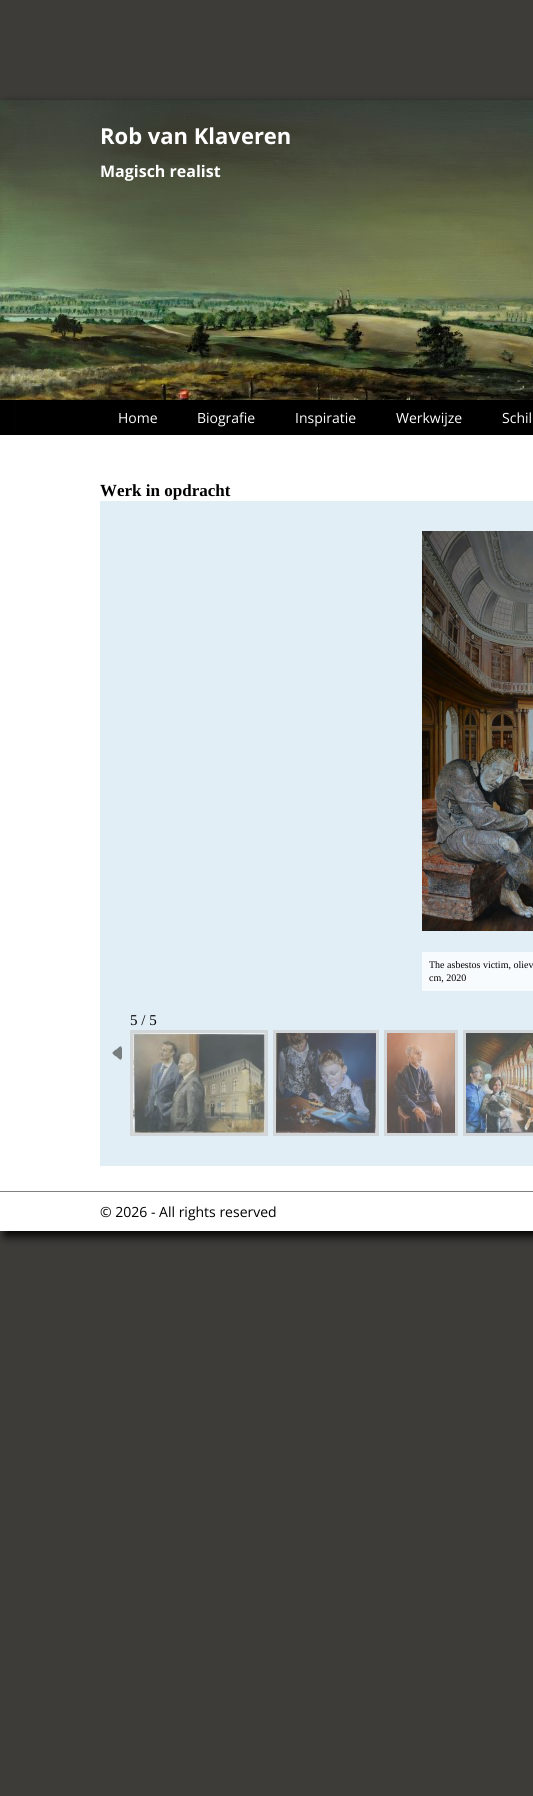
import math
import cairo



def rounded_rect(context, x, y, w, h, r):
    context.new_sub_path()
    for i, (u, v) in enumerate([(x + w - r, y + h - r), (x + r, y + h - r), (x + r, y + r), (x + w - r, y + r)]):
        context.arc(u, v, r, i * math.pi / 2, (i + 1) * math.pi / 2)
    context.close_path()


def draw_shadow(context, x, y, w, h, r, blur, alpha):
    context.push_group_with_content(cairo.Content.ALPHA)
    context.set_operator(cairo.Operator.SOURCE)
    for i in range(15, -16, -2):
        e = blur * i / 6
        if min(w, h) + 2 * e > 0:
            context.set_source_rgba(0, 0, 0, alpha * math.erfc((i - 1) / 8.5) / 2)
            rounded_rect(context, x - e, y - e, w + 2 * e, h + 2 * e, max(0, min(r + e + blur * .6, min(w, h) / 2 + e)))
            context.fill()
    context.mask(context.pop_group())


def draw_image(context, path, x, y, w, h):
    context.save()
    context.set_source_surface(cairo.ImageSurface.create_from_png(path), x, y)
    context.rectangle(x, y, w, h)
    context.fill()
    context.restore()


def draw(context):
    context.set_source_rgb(61 / 255, 60 / 255, 57 / 255)
    context.paint()
    context.set_source_rgb(0, 0, 0)
    draw_shadow(context, 5, 105, 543, 1131, 0, 5, 1)
    draw_image(context, "images/1.png", 0, 100, 533, 300)
    context.set_source_rgb(0, 0, 0)
    context.rectangle(0, 400, 14, 35)
    context.fill()
    context.set_source_rgb(1, 1, 1)
    context.rectangle(0, 435, 533, 756)
    context.fill()
    context.set_source_rgb(225 / 255, 238 / 255, 245 / 255)
    context.rectangle(100, 501, 433, 665)
    context.fill()
    draw_image(context, "images/2.png", 422, 531, 111, 400)
    context.set_source_rgb(248 / 255, 251 / 255, 253 / 255)
    context.rectangle(422, 952, 111, 39)
    context.fill()
    draw_image(context, "images/3.png", 112, 1046, 10, 14)
    context.rectangle(131.5, 1031.5, 135, 103)
    context.set_source_rgb(210 / 255, 214 / 255, 216 / 255)
    context.set_line_width(3)
    context.stroke()
    draw_image(context, "images/4.png", 133, 1033, 132, 100)
    context.rectangle(274.5, 1031.5, 103, 103)
    context.stroke()
    draw_image(context, "images/5.png", 276, 1033, 100, 100)
    context.rectangle(385.5, 1031.5, 71, 103)
    context.stroke()
    draw_image(context, "images/6.png", 387, 1033, 68, 100)
    context.rectangle(464.5, 1031.5, 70, 103)
    context.stroke()
    draw_image(context, "images/7.png", 466, 1033, 67, 100)
    context.set_source_rgb(1, 1, 1)
    context.rectangle(0, 1192, 533, 39)
    context.fill()
    context.set_source_rgb(128 / 255, 128 / 255, 128 / 255)
    context.rectangle(0, 1191, 533, 1)
    context.fill()
    context.select_font_face("Open Sans", cairo.FontSlant.NORMAL, cairo.FontWeight.BOLD)
    context.set_font_size(22)
    context.set_source_rgb(1, 1, 1)
    context.move_to(100, 144)
    context.show_text("Rob van Klaveren")
    context.set_font_size(16)
    context.move_to(100, 177)
    context.show_text("Magisch realist")
    context.select_font_face("Open Sans")
    context.set_font_size(14)
    context.move_to(118, 423)
    context.show_text("Home")
    context.move_to(197, 423)
    context.show_text("Biografie")
    context.move_to(295, 423)
    context.show_text("Inspiratie")
    context.move_to(396, 423)
    context.show_text("Werkwijze")
    context.move_to(502, 423)
    context.show_text("Schil")
    context.select_font_face("Liberation Serif", cairo.FontSlant.NORMAL, cairo.FontWeight.BOLD)
    context.set_font_size(17)
    context.set_source_rgb(0, 0, 0)
    context.move_to(100, 496)
    context.show_text("Werk in opdracht")
    context.select_font_face("Liberation Serif")
    context.set_font_size(10)
    context.move_to(429, 968)
    context.show_text("The asbestos victim, oliev")
    context.move_to(429, 981)
    context.show_text("cm, 2020")
    context.set_font_size(15)
    context.move_to(130, 1025)
    context.show_text("5 / 5")
    context.select_font_face("Open Sans")
    context.set_font_size(14)
    context.move_to(100, 1217)
    context.show_text("© 2026 - All rights reserved")


surface = cairo.ImageSurface(cairo.Format.RGB24, 533, 1796)
context = cairo.Context(surface)
options = cairo.FontOptions()
options.set_hint_metrics(cairo.HintMetrics.OFF)
options.set_hint_style(cairo.HintStyle.NONE)
context.set_font_options(options)
context.set_miter_limit(4)
draw(context)
surface.write_to_png("out.png")
